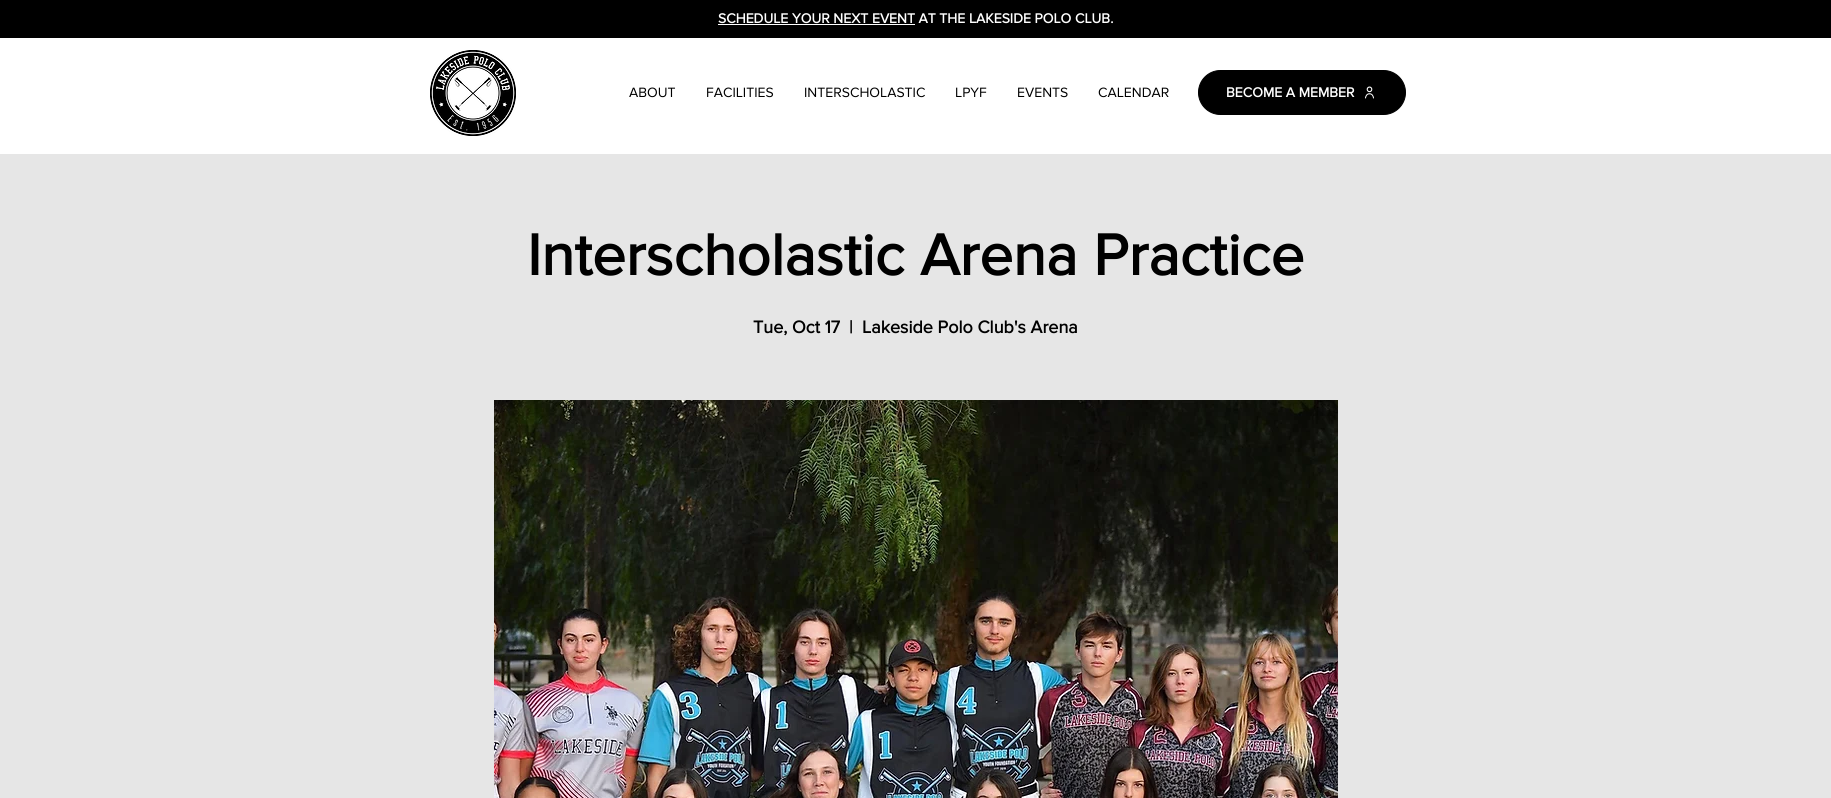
import math
import cairo



def rounded_rect(context, x, y, w, h, r):
    context.new_sub_path()
    for i, (u, v) in enumerate([(x + w - r, y + h - r), (x + r, y + h - r), (x + r, y + r), (x + w - r, y + r)]):
        context.arc(u, v, r, i * math.pi / 2, (i + 1) * math.pi / 2)
    context.close_path()


def draw_image(context, path, x, y, w, h):
    context.save()
    context.set_source_surface(cairo.ImageSurface.create_from_png(path), x, y)
    context.rectangle(x, y, w, h)
    context.fill()
    context.restore()


def draw(context):
    context.set_source_rgb(230 / 255, 230 / 255, 230 / 255)
    context.paint()
    context.set_source_rgb(0, 0, 0)
    context.rectangle(0, 0, 1831, 38)
    context.fill()
    context.set_source_rgb(1, 1, 1)
    context.rectangle(718, 24, 197, 1)
    context.fill()
    context.rectangle(0, 38, 1831, 116)
    context.fill()
    draw_image(context, "images/1.png", 430, 50, 86, 86)
    context.set_source_rgb(0, 0, 0)
    rounded_rect(context, 1198.5, 70.5, 207, 44, 22)
    context.fill_preserve()
    context.set_line_width(1)
    context.stroke()
    draw_image(context, "images/2.png", 1365, 86, 9, 13)
    draw_image(context, "images/3.png", 494, 400, 844, 398)
    context.select_font_face("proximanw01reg", cairo.FontSlant.NORMAL, cairo.FontWeight.BOLD)
    context.set_font_size(14)
    context.set_source_rgb(1, 1, 1)
    context.move_to(718, 23)
    context.show_text("SCHEDULE YOUR NEXT EVENT AT THE LAKESIDE POLO CLUB.")
    context.select_font_face("proximanw01reg")
    context.set_source_rgb(0, 0, 0)
    context.move_to(629, 97)
    context.show_text("ABOUT")
    context.move_to(706, 97)
    context.show_text("FACILITIES")
    context.move_to(804, 97)
    context.show_text("INTERSCHOLASTIC")
    context.move_to(955, 97)
    context.show_text("LPYF")
    context.move_to(1017, 97)
    context.show_text("EVENTS")
    context.move_to(1098, 97)
    context.show_text("CALENDAR")
    context.select_font_face("proximanw01reg", cairo.FontSlant.NORMAL, cairo.FontWeight.BOLD)
    context.set_source_rgb(1, 1, 1)
    context.move_to(1226, 97)
    context.show_text("BECOME A MEMBER")
    context.set_font_size(60)
    context.set_source_rgb(0, 0, 0)
    context.move_to(527, 275)
    context.show_text("Interscholastic Arena Practice")
    context.set_font_size(18)
    context.move_to(753, 333)
    context.show_text("Tue, Oct 17")
    context.move_to(849, 333)
    context.show_text("|")
    context.move_to(862, 333)
    context.show_text("Lakeside Polo Club's Arena")


surface = cairo.ImageSurface(cairo.Format.RGB24, 1831, 798)
context = cairo.Context(surface)
options = cairo.FontOptions()
options.set_hint_metrics(cairo.HintMetrics.OFF)
options.set_hint_style(cairo.HintStyle.NONE)
context.set_font_options(options)
context.set_miter_limit(4)
draw(context)
surface.write_to_png("out.png")
